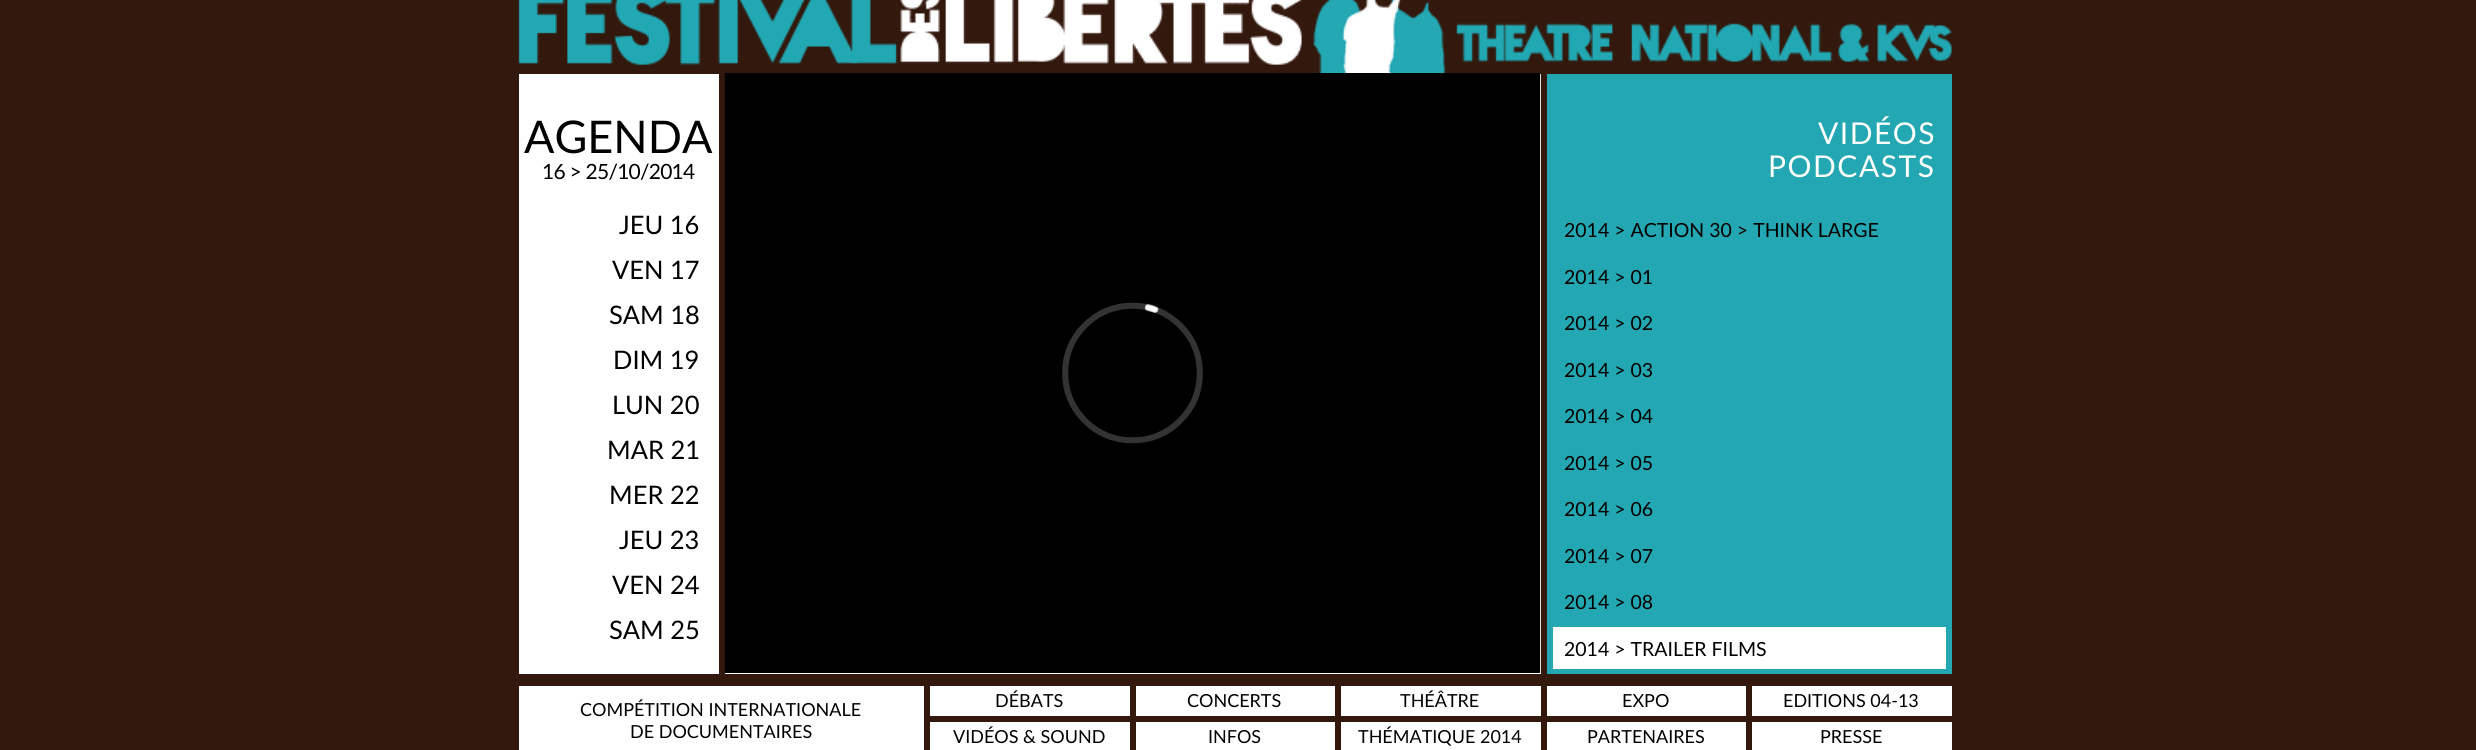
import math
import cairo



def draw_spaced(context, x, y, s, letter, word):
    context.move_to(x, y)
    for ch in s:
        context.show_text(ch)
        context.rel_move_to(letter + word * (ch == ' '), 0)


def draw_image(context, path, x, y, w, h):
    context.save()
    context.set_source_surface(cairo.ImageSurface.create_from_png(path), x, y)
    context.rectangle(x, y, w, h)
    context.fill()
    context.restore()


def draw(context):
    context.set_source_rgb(51 / 255, 24 / 255, 13 / 255)
    context.paint()
    draw_image(context, "images/1.png", 518, 0, 1434, 73)
    context.set_source_rgb(1, 1, 1)
    context.rectangle(519, 74, 200, 600)
    context.fill()
    context.rectangle(725, 74, 816, 600)
    context.fill()
    draw_image(context, "images/2.png", 724, 73, 817, 600)
    context.set_source_rgb(35 / 255, 167 / 255, 179 / 255)
    context.rectangle(1547, 74, 405, 600)
    context.fill()
    context.set_source_rgb(1, 1, 1)
    context.rectangle(1553, 627, 393, 42)
    context.fill()
    context.rectangle(519, 686, 405, 64)
    context.fill()
    context.rectangle(930, 686, 200, 30)
    context.fill()
    context.rectangle(1136, 686, 199, 30)
    context.fill()
    context.rectangle(1341, 686, 200, 30)
    context.fill()
    context.rectangle(1547, 686, 199, 30)
    context.fill()
    context.rectangle(1752, 686, 200, 30)
    context.fill()
    context.rectangle(930, 722, 200, 28)
    context.fill()
    context.rectangle(1136, 722, 199, 28)
    context.fill()
    context.rectangle(1341, 722, 200, 28)
    context.fill()
    context.rectangle(1547, 722, 199, 28)
    context.fill()
    context.rectangle(1752, 722, 200, 28)
    context.fill()
    context.select_font_face("Lato")
    context.set_font_size(45)
    context.set_source_rgb(0, 0, 0)
    context.move_to(524, 153)
    context.show_text("AGENDA")
    context.set_font_size(21)
    draw_spaced(context, 542, 179, "16 > 25/10/2014", -0.75, 0)
    context.set_font_size(25.5)
    context.move_to(619, 234)
    context.show_text("JEU 16")
    context.move_to(612, 279)
    context.show_text("VEN 17")
    context.move_to(609, 324)
    context.show_text("SAM 18")
    context.move_to(613, 369)
    context.show_text("DIM 19")
    context.move_to(612, 414)
    context.show_text("LUN 20")
    context.move_to(607, 459)
    context.show_text("MAR 21")
    context.move_to(609, 504)
    context.show_text("MER 22")
    context.move_to(619, 549)
    context.show_text("JEU 23")
    context.move_to(612, 594)
    context.show_text("VEN 24")
    context.move_to(609, 639)
    context.show_text("SAM 25")
    context.set_font_size(30)
    context.set_source_rgb(1, 1, 1)
    draw_spaced(context, 1818, 144, "VIDÉOS", 1.5, 0)
    draw_spaced(context, 1768, 177, "PODCASTS", 1.5, 0)
    context.set_font_size(19.5)
    context.set_source_rgb(0, 0, 0)
    context.move_to(1564, 237)
    context.show_text("2014 > ACTION 30 > THINK LARGE")
    context.move_to(1564, 284)
    context.show_text("2014 > 01")
    context.move_to(1564, 330)
    context.show_text("2014 > 02")
    context.move_to(1564, 377)
    context.show_text("2014 > 03")
    context.move_to(1564, 423)
    context.show_text("2014 > 04")
    context.move_to(1564, 470)
    context.show_text("2014 > 05")
    context.move_to(1564, 516)
    context.show_text("2014 > 06")
    context.move_to(1564, 563)
    context.show_text("2014 > 07")
    context.move_to(1564, 609)
    context.show_text("2014 > 08")
    context.move_to(1564, 656)
    context.show_text("2014 > TRAILER FILMS")
    context.set_font_size(18)
    context.move_to(580, 716)
    context.show_text("COMPÉTITION INTERNATIONALE")
    context.move_to(630, 738)
    context.show_text("DE DOCUMENTAIRES")
    context.move_to(995, 707)
    context.show_text("DÉBATS")
    context.move_to(1187, 707)
    context.show_text("CONCERTS")
    context.move_to(1400, 707)
    context.show_text("THÉÂTRE")
    context.move_to(1622, 707)
    context.show_text("EXPO")
    context.move_to(1783, 707)
    context.show_text("EDITIONS 04-13")
    context.move_to(953, 743)
    context.show_text("VIDÉOS & SOUND")
    context.move_to(1208, 743)
    context.show_text("INFOS")
    context.move_to(1358, 743)
    context.show_text("THÉMATIQUE 2014")
    context.move_to(1587, 743)
    context.show_text("PARTENAIRES")
    context.move_to(1820, 743)
    context.show_text("PRESSE")


surface = cairo.ImageSurface(cairo.Format.RGB24, 2476, 750)
context = cairo.Context(surface)
options = cairo.FontOptions()
options.set_hint_metrics(cairo.HintMetrics.OFF)
options.set_hint_style(cairo.HintStyle.NONE)
context.set_font_options(options)
context.set_miter_limit(4)
draw(context)
surface.write_to_png("out.png")
